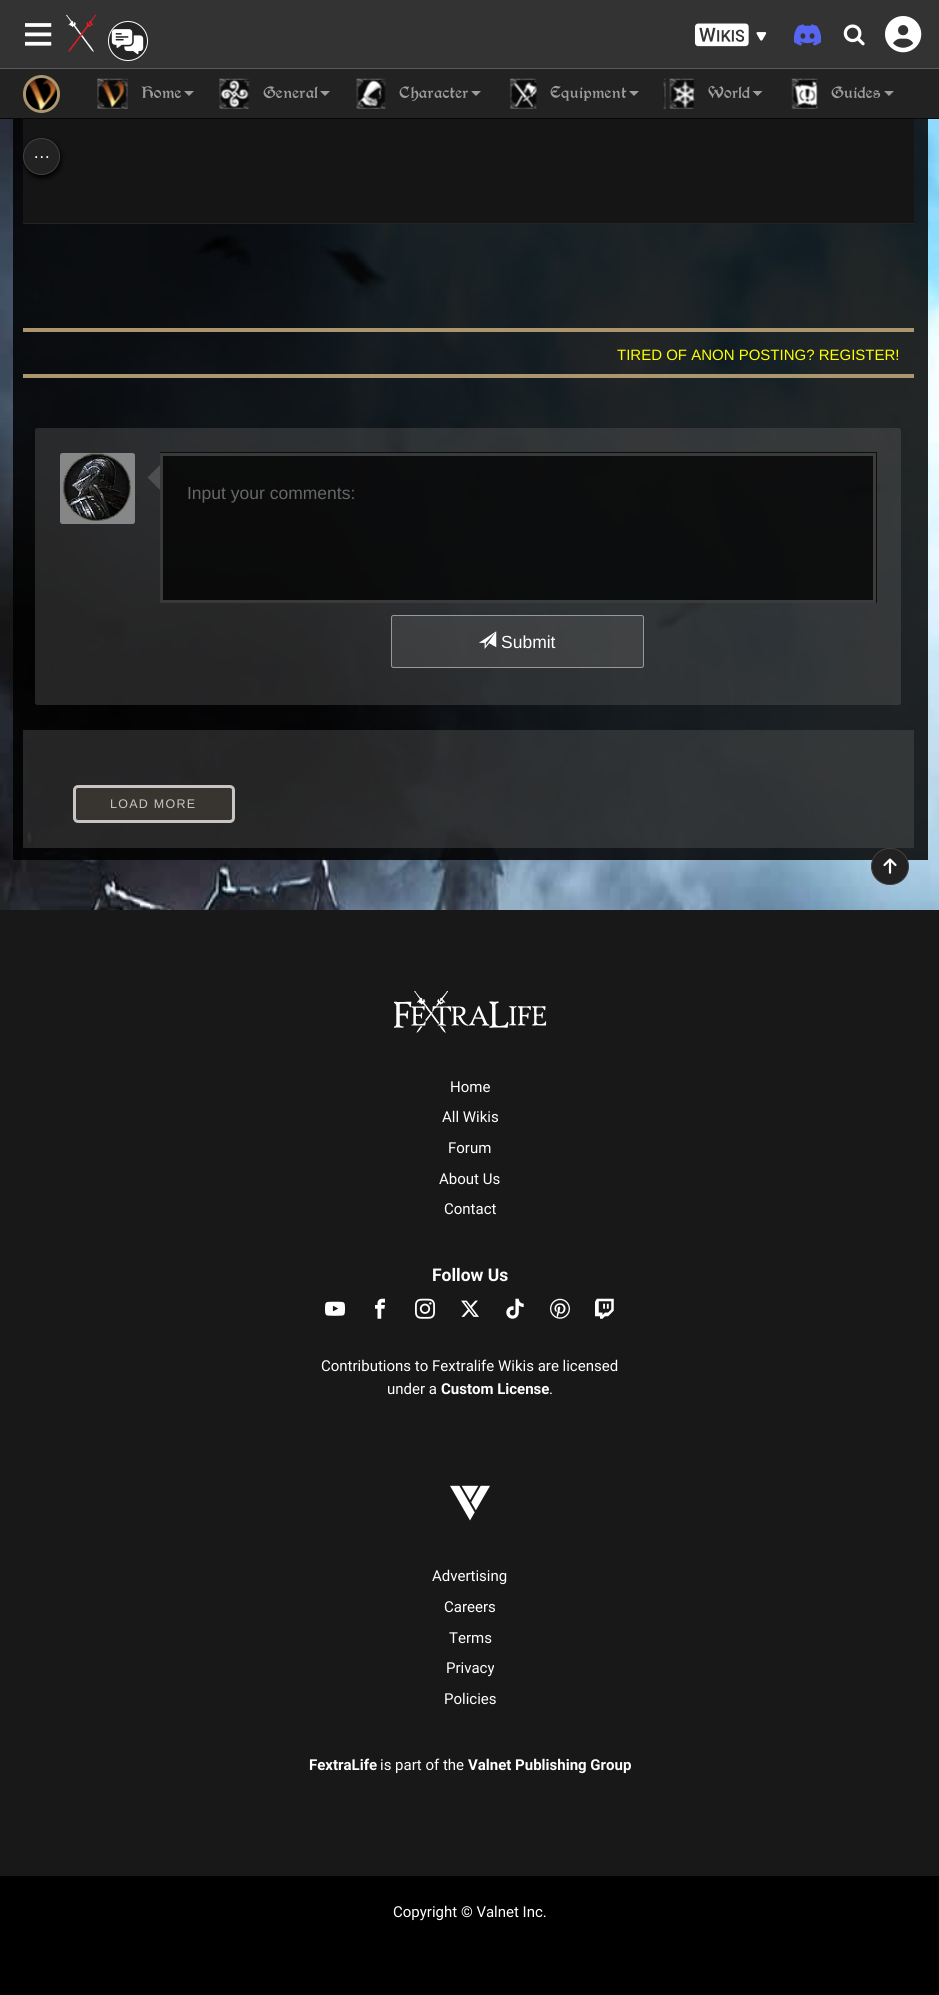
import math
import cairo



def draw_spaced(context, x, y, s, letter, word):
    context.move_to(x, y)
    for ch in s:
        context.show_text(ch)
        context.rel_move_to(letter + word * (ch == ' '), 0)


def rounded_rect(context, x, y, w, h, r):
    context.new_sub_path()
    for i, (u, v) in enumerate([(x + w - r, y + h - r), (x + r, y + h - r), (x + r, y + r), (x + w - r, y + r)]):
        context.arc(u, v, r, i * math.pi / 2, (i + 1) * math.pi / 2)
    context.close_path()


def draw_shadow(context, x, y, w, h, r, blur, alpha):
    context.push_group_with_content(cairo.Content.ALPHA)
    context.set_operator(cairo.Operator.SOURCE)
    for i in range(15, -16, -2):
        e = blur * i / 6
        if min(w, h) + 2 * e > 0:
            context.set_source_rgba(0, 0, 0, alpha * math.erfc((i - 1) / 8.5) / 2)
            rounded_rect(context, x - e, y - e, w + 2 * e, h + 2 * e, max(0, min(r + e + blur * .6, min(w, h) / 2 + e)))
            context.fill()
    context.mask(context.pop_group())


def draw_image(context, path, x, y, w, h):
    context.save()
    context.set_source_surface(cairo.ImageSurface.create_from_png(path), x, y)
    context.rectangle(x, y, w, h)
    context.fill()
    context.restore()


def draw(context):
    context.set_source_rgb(1, 1, 1)
    context.paint()
    context.set_source_rgb(51 / 255, 51 / 255, 51 / 255)
    context.rectangle(0, 0, 939, 68)
    context.fill()
    context.set_source_rgb(89 / 255, 89 / 255, 89 / 255)
    context.rectangle(0, 68, 939, 1)
    context.fill()
    draw_image(context, "images/1.png", 25, 23, 27, 23)
    draw_image(context, "images/2.png", 66, 14, 30, 38)
    context.set_source_rgb(36 / 255, 36 / 255, 36 / 255)
    context.arc(128, 41, 19.5, 0, 2 * math.pi)
    context.fill_preserve()
    context.set_source_rgb(1, 1, 1)
    context.set_line_width(1)
    context.stroke()
    draw_image(context, "images/3.png", 111, 29, 33, 26)
    draw_image(context, "images/4.png", 694, 23, 73, 24)
    draw_image(context, "images/5.png", 794, 24, 27, 22)
    draw_image(context, "images/6.png", 843, 24, 22, 22)
    draw_image(context, "images/7.png", 885, 16, 37, 37)
    context.set_source_rgb(34 / 255, 34 / 255, 34 / 255)
    context.rectangle(0, 69, 939, 49)
    context.fill()
    context.set_source_rgb(8 / 255, 8 / 255, 8 / 255)
    context.rectangle(0, 118, 939, 1)
    context.fill()
    context.set_source_rgb(0, 0, 0)
    rounded_rect(context, 23, 75, 37, 38, 18.5)
    context.fill()
    draw_image(context, "images/8.png", 26, 77, 31, 33)
    rounded_rect(context, 24.5, 76.5, 34, 35, 17)
    context.set_source_rgb(171 / 255, 150 / 255, 111 / 255)
    context.set_line_width(3)
    context.stroke()
    draw_image(context, "images/9.png", 97, 78, 31, 31)
    context.set_source_rgb(157 / 255, 157 / 255, 157 / 255)
    context.new_path()
    context.move_to(184, 91)
    context.line_to(194, 91)
    context.line_to(189, 96)
    context.close_path()
    context.fill()
    draw_image(context, "images/10.png", 219, 78, 31, 31)
    context.new_path()
    context.move_to(320, 91)
    context.line_to(330, 91)
    context.line_to(325, 96)
    context.close_path()
    context.fill()
    draw_image(context, "images/11.png", 356, 78, 30, 31)
    context.new_path()
    context.move_to(471, 91)
    context.line_to(481, 91)
    context.line_to(476, 96)
    context.close_path()
    context.fill()
    draw_image(context, "images/12.png", 509, 78, 28, 31)
    context.new_path()
    context.move_to(629, 91)
    context.line_to(639, 91)
    context.line_to(634, 96)
    context.close_path()
    context.fill()
    draw_image(context, "images/13.png", 663, 78, 32, 31)
    context.new_path()
    context.move_to(752.5, 91)
    context.line_to(762.5, 91)
    context.line_to(757.5, 96)
    context.close_path()
    context.fill()
    draw_image(context, "images/14.png", 791, 78, 27, 31)
    context.new_path()
    context.move_to(884, 91)
    context.line_to(894, 91)
    context.line_to(889, 96)
    context.close_path()
    context.fill()
    draw_image(context, "images/15.png", 0, 119, 939, 791)
    context.set_source_rgba(0, 0, 0, 0.85)
    context.rectangle(13, 119, 915, 741)
    context.fill()
    context.set_source_rgb(21 / 255, 21 / 255, 21 / 255)
    context.rectangle(23, 119, 891, 104)
    context.fill()
    context.set_source_rgb(0, 0, 0)
    draw_shadow(context, 24, 140, 37, 38, 18.5, 2.5, 1)
    context.set_source_rgb(34 / 255, 34 / 255, 34 / 255)
    context.arc(41.5, 156.5, 18, 0, 2 * math.pi)
    context.fill_preserve()
    context.set_source_rgb(64 / 255, 64 / 255, 64 / 255)
    context.set_line_width(1)
    context.stroke()
    context.set_source_rgb(36 / 255, 36 / 255, 36 / 255)
    context.rectangle(23, 223, 891, 1)
    context.fill()
    context.set_source_rgb(171 / 255, 150 / 255, 111 / 255)
    context.rectangle(23, 328, 891, 4)
    context.fill()
    context.rectangle(23, 374, 891, 4)
    context.fill()
    context.set_source_rgba(89 / 255, 89 / 255, 89 / 255, 0.4)
    rounded_rect(context, 35, 428, 866, 277, 2.5)
    context.fill()
    context.set_source_rgba(229 / 255, 229 / 255, 229 / 255, 0.5)
    rounded_rect(context, 60, 453, 75, 71, 2.5)
    context.fill()
    draw_image(context, "images/16.png", 62, 453, 69, 68)
    context.set_source_rgb(77 / 255, 78 / 255, 80 / 255)
    context.new_path()
    context.move_to(160, 465)
    context.line_to(160, 490)
    context.line_to(147.5, 477.5)
    context.close_path()
    context.fill()
    context.set_source_rgba(0, 0, 0, 0.75)
    context.rectangle(160, 452, 717, 151)
    context.fill()
    context.rectangle(161.5, 454.5, 713, 147)
    context.set_source_rgba(128 / 255, 128 / 255, 128 / 255, 0.4)
    context.set_line_width(3)
    context.stroke()
    context.set_source_rgba(89 / 255, 89 / 255, 89 / 255, 0.4)
    rounded_rect(context, 391.5, 615.5, 252, 52, 2)
    context.fill_preserve()
    context.set_source_rgb(153 / 255, 153 / 255, 153 / 255)
    context.set_line_width(1)
    context.stroke()
    draw_image(context, "images/17.png", 479, 631, 18, 18)
    context.set_source_rgba(89 / 255, 89 / 255, 89 / 255, 0.4)
    context.rectangle(23, 730, 891, 118)
    context.fill()
    context.set_source_rgb(56 / 255, 52 / 255, 48 / 255)
    rounded_rect(context, 74.5, 786.5, 159, 35, 3.5)
    context.fill_preserve()
    context.set_source_rgb(200 / 255, 198 / 255, 196 / 255)
    context.set_line_width(3)
    context.stroke()
    context.set_source_rgb(34 / 255, 34 / 255, 34 / 255)
    rounded_rect(context, 871.5, 848.5, 37, 36, 18)
    context.fill_preserve()
    context.set_source_rgb(64 / 255, 64 / 255, 64 / 255)
    context.set_line_width(1)
    context.stroke()
    draw_image(context, "images/18.png", 883, 858, 14, 16)
    context.set_source_rgb(24 / 255, 24 / 255, 24 / 255)
    context.rectangle(0, 910, 939, 966)
    context.fill()
    draw_image(context, "images/19.png", 394, 991, 153, 42)
    draw_image(context, "images/20.png", 325, 1301, 20, 15)
    draw_image(context, "images/21.png", 375, 1298, 10, 21)
    draw_image(context, "images/22.png", 415, 1298, 20, 21)
    draw_image(context, "images/23.png", 461, 1300, 18, 17)
    draw_image(context, "images/24.png", 506, 1298, 18, 21)
    draw_image(context, "images/25.png", 550, 1298, 20, 21)
    draw_image(context, "images/26.png", 595, 1298, 19, 21)
    draw_image(context, "images/27.png", 450, 1485, 40, 36)
    context.set_source_rgb(0, 0, 0)
    context.rectangle(0, 1876, 939, 119)
    context.fill()
    context.select_font_face("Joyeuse")
    context.set_font_size(15)
    context.set_source_rgb(157 / 255, 157 / 255, 157 / 255)
    context.move_to(141, 98)
    context.show_text("Home")
    context.move_to(263, 98)
    context.show_text("General")
    context.move_to(399, 98)
    context.show_text("Character")
    context.move_to(550, 98)
    context.show_text("Equipment")
    context.move_to(708, 98)
    context.show_text("World")
    context.move_to(831, 98)
    context.show_text("Guides")
    context.select_font_face("Liberation Sans")
    context.set_font_size(17.5)
    context.set_source_rgb(1, 1, 1)
    context.move_to(33, 158)
    context.show_text("…")
    context.set_font_size(15)
    context.set_source_rgb(1, 1, 0)
    context.move_to(617, 360)
    context.show_text("TIRED OF ANON POSTING? REGISTER!")
    context.set_font_size(17.5)
    context.set_source_rgb(102 / 255, 102 / 255, 102 / 255)
    context.move_to(187, 499)
    context.show_text("Input your comments:")
    context.set_source_rgb(1, 1, 1)
    context.move_to(501, 648)
    context.show_text("Submit")
    context.set_font_size(12.5)
    context.set_source_rgb(200 / 255, 198 / 255, 196 / 255)
    draw_spaced(context, 110, 808, "LOAD MORE", 1.25, 0)
    context.select_font_face("Roboto")
    context.set_font_size(15)
    context.set_source_rgb(1, 1, 1)
    context.move_to(450, 1092)
    context.show_text("Home")
    context.move_to(442, 1122)
    context.show_text("All Wikis")
    context.move_to(448, 1153)
    context.show_text("Forum")
    context.move_to(439, 1184)
    context.show_text("About Us")
    context.move_to(444, 1214)
    context.show_text("Contact")
    context.select_font_face("Roboto", cairo.FontSlant.NORMAL, cairo.FontWeight.BOLD)
    context.set_font_size(17.5)
    context.move_to(432, 1281)
    context.show_text("Follow Us")
    context.select_font_face("Roboto")
    context.set_font_size(15)
    context.move_to(321, 1371)
    context.show_text("Contributions to Fextralife Wikis are licensed")
    context.move_to(387, 1394)
    context.show_text("under a")
    context.select_font_face("Roboto", cairo.FontSlant.NORMAL, cairo.FontWeight.BOLD)
    context.move_to(441, 1394)
    context.show_text("Custom License")
    context.select_font_face("Roboto")
    context.move_to(549, 1394)
    context.show_text(".")
    context.move_to(432, 1581)
    context.show_text("Advertising")
    context.move_to(444, 1612)
    context.show_text("Careers")
    context.move_to(449, 1643)
    context.show_text("Terms")
    context.move_to(446, 1673)
    context.show_text("Privacy")
    context.move_to(444, 1704)
    context.show_text("Policies")
    context.select_font_face("Roboto", cairo.FontSlant.NORMAL, cairo.FontWeight.BOLD)
    context.move_to(309, 1770)
    context.show_text("FextraLife")
    context.select_font_face("Roboto")
    context.move_to(380, 1770)
    context.show_text("is part of the")
    context.select_font_face("Roboto", cairo.FontSlant.NORMAL, cairo.FontWeight.BOLD)
    context.move_to(468, 1770)
    context.show_text("Valnet Publishing Group")
    context.select_font_face("Roboto")
    context.move_to(393, 1917)
    context.show_text("Copyright © Valnet Inc.")


surface = cairo.ImageSurface(cairo.Format.RGB24, 939, 1995)
context = cairo.Context(surface)
options = cairo.FontOptions()
options.set_hint_metrics(cairo.HintMetrics.OFF)
options.set_hint_style(cairo.HintStyle.NONE)
context.set_font_options(options)
context.set_miter_limit(4)
draw(context)
surface.write_to_png("out.png")
